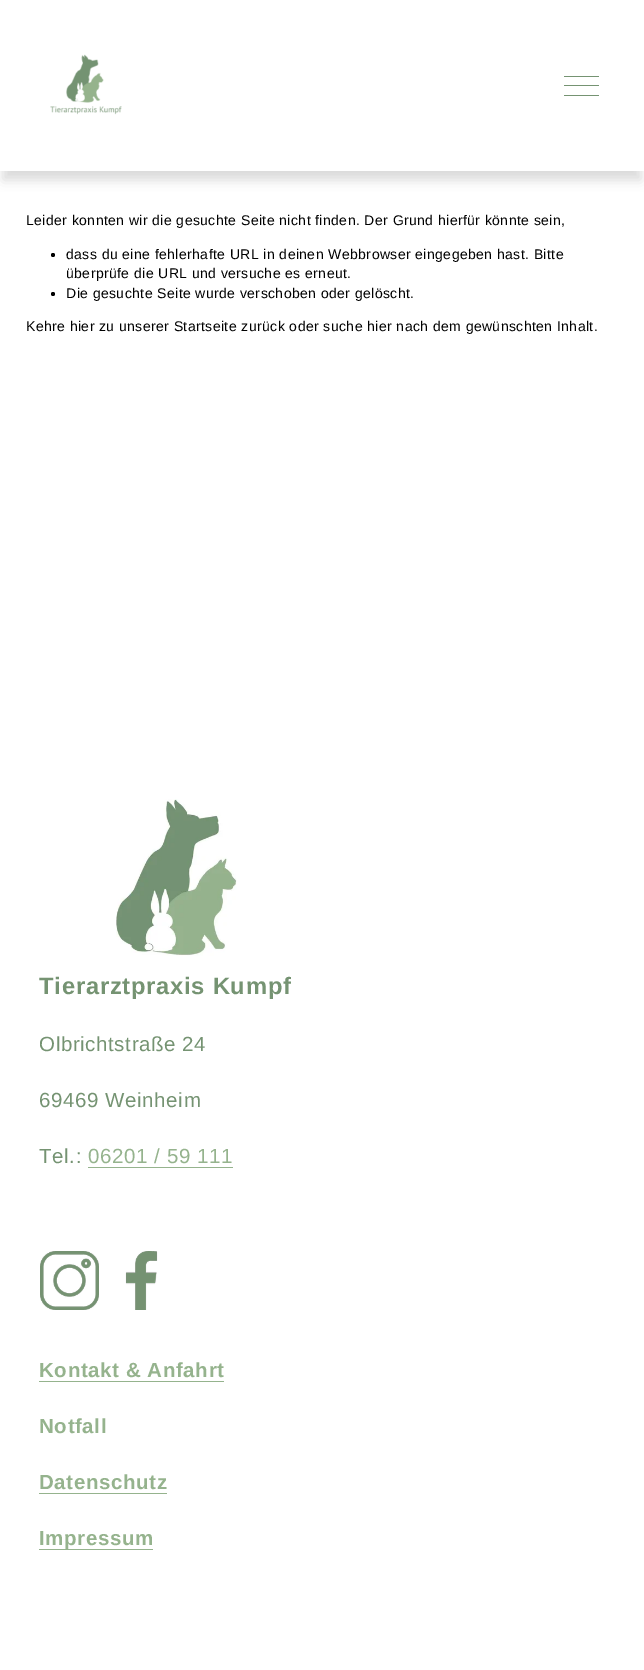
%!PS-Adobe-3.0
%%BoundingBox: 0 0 644 1670
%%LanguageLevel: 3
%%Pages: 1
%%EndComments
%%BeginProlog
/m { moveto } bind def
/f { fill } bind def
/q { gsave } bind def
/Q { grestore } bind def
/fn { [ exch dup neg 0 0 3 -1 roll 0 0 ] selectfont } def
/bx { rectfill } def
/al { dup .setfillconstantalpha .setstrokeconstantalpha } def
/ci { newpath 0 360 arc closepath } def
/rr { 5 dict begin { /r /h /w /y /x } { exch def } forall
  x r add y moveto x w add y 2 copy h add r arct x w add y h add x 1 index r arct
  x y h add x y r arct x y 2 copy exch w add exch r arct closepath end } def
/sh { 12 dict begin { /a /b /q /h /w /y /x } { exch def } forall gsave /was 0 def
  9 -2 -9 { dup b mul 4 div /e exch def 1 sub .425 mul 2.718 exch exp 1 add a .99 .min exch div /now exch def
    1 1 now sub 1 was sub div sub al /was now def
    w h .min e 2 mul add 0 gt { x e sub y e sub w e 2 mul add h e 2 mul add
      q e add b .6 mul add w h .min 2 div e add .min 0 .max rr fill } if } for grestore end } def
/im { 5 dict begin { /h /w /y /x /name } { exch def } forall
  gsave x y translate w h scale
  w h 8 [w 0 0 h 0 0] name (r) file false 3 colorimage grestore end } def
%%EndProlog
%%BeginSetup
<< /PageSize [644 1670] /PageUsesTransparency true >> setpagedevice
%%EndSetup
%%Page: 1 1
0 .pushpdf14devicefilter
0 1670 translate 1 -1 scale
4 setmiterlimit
1 setgray
0 0 644 1670 bx
q
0 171 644 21 rectclip
0.851 setgray
3 15 638 165 0 6 1 sh
Q
(image0.raw) 50 54 72 61 im
0.459 0.576 0.447 setrgbcolor
564 76 35 1 bx
564 85 35 1 bx
564 95 35 1 bx
/LiberationSans-Regular 14 fn
0 setgray
26 225 m 0.42 0 (Leider konnten wir die gesuchte Seite nicht finden. Der Grund hierfür könnte sein,) ashow
53 255 2 ci f
66 259 m 0.42 0 (dass du eine fehlerhafte URL in deinen Webbrowser eingegeben hast. Bitte) ashow
66 278 m 0.42 0 (überprüfe die URL und versuche es erneut.) ashow
53 294 2 ci f
66 298 m 0.42 0 (Die gesuchte Seite wurde verschoben oder gelöscht.) ashow
26 331 m 0.42 0 (Kehre hier zu unserer Startseite zurück oder suche hier nach dem gewünschten Inhalt.) ashow
(image1.raw) 116 799 121 157 im
/LiberationSans-Bold 23.75 fn
0.459 0.576 0.447 setrgbcolor
39 994 m 0.75 0 (Tierarztpraxis Kumpf) ashow
/LiberationSans-Regular 20.5 fn
39 1051 m 0.6 0 (Olbrichtstraße 24) ashow
39 1107 m 0.6 0 (69469 Weinheim) ashow
39 1163 m 0.6 0 (Tel.:) ashow
0.584 0.702 0.553 setrgbcolor
88 1163 m 0.6 0 (06201 / 59 111) ashow
88 1167 145 1 bx
(image2.raw) 40 1251 59 59 im
(image3.raw) 125 1251 33 59 im
/LiberationSans-Bold 20.5 fn
39 1377 m 0.6 0 (Kontakt & Anfahrt) ashow
39 1381 185 1 bx
39 1433 m 0.6 0 (Notfall) ashow
39 1489 m 0.6 0 (Datenschutz) ashow
39 1493 128 1 bx
39 1549 114 1 bx
39 1545 m 0.6 0 (Impressum) ashow
.poppdf14devicefilter showpage
%%EOF
